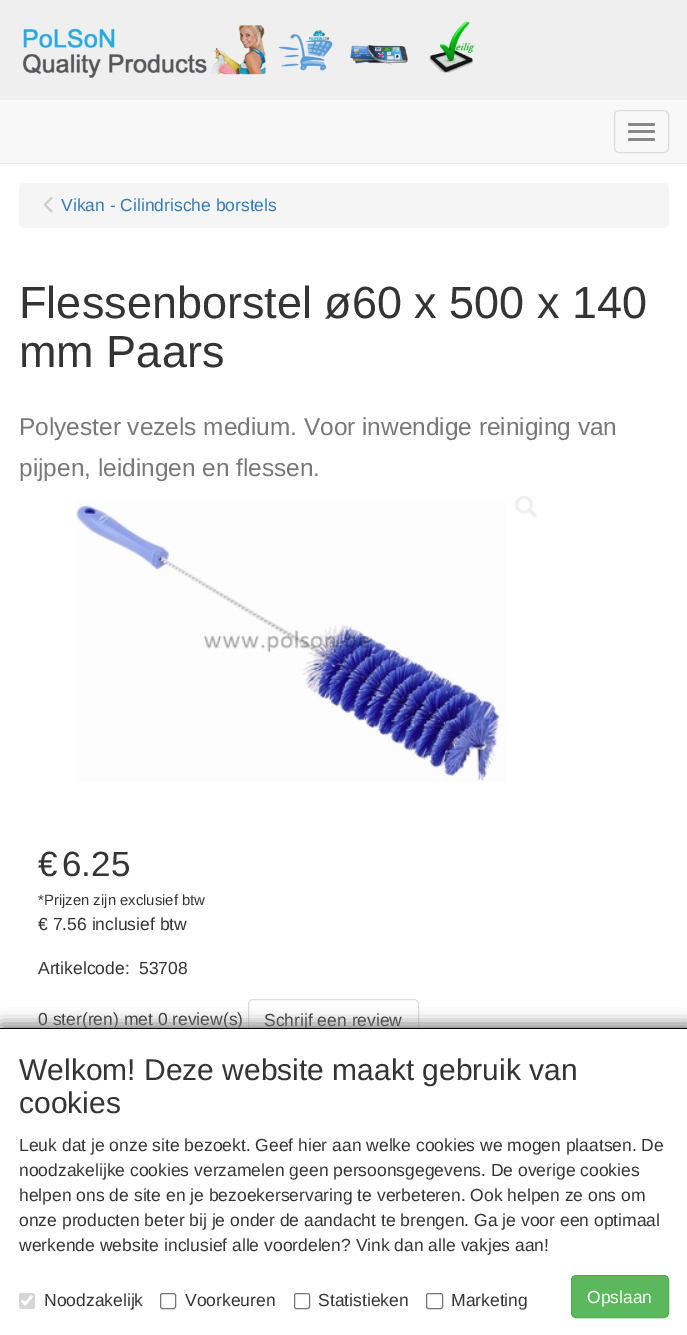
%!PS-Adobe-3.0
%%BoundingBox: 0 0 687 1335
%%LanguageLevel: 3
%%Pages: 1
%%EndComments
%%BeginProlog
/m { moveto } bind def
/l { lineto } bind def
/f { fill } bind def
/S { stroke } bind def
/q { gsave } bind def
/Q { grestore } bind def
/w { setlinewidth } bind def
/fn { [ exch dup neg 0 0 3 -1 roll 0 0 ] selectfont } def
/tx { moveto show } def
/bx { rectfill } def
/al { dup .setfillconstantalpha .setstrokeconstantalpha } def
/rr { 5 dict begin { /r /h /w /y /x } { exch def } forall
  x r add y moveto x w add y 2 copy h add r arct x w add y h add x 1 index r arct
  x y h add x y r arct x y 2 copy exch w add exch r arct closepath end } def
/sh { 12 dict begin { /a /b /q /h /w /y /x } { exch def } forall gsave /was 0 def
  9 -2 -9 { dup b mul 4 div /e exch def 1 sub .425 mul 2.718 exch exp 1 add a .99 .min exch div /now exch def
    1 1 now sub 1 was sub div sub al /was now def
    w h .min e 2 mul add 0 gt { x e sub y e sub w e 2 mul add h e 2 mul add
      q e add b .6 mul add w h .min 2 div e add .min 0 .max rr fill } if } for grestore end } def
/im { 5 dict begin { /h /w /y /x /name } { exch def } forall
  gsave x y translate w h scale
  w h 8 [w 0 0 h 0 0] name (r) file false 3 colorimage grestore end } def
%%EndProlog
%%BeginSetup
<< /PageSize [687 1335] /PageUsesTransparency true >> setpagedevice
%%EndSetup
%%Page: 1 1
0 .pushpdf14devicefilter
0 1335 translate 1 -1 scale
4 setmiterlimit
1 setgray
0 0 687 1335 bx
0.937 setgray
0 0 687 100 bx
(image0.raw) 22 20 453 58 im
0.973 setgray
0 100 687 63 bx
0.922 setgray
0 163 687 1 bx
0.867 setgray
614.5 110.5 54 42 4.5 rr S
0.533 setgray
628 123 27 3 1.5 rr f
628 130 27 3 1.5 rr f
628 138 27 3 1.5 rr f
0.961 setgray
19 183 650 45 5 rr f
(image1.raw) 43 197 10 16 im
/LiberationSans-Regular 17.5 fn
0.2 0.478 0.718 setrgbcolor
(Vikan - Cilindrische borstels) 61 211 tx
/LiberationSans-Regular 45 fn
0.204 setgray
(Flessenborstel ø60 x 500 x 140) 19 318 tx
(mm Paars) 19 367 tx
/LiberationSans-Regular 24.4 fn
0.471 setgray
(Polyester vezels medium. Voor inwendige reiniging van) 19 435 tx
(pijpen, leidingen en flessen.) 19 476 tx
(image2.raw) 76 500 430 282 im
(image3.raw) 515 496 22 22 im
/LiberationSans-Regular 35 fn
0.204 setgray
(€) 38 876 tx
(6.25) 62 876 tx
/LiberationSans-Regular 14.9 fn
(*Prijzen zijn exclusief btw) 38 905 tx
/LiberationSans-Regular 17.5 fn
(€ 7.56 inclusief btw) 38 930 tx
(Artikelcode:) 38 974 tx
(53708) 139 974 tx
(0 ster\(ren\) met 0 review\(s\)) 38 1025 tx
0.867 setgray
248.5 999.5 170 41 4.5 rr S
0.204 setgray
(Schrijf een review) 264 1026 tx
0.502 setgray
1 1024 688 307 0 7.5 1 sh
1 setgray
0 1029 687 306 bx
0 setgray
0 1028 687 1 bx
/LiberationSans-Regular 30 fn
0.204 setgray
(Welkom! Deze website maakt gebruik van) 19 1080 tx
(cookies) 19 1113 tx
/LiberationSans-Regular 17.5 fn
(Leuk dat je onze site bezoekt. Geef hier aan welke cookies we mogen plaatsen. De) 19 1151 tx
(noodzakelijke cookies verzamelen geen persoonsgegevens. De overige cookies) 19 1176 tx
(helpen ons de site en je bezoekerservaring te verbeteren. Ook helpen ze ons om) 19 1201 tx
(onze producten beter bij je onder de aandacht te brengen. Ga je voor een optimaal) 19 1226 tx
(werkende website inclusief alle voordelen? Vink dan alle vakjes aan!) 19 1251 tx
0.839 setgray
19 1293 16 16 2.5 rr f
1 setgray
2.6 w
22 1300.5 m 25 1304 l 32 1296 l S
0.204 setgray
(Noodzakelijk) 44 1306 tx
0.463 setgray
1 w
160.5 1293.5 15 15 2 rr S
0.204 setgray
(Voorkeuren) 185 1306 tx
0.463 setgray
294.5 1293.5 15 15 2 rr S
0.204 setgray
(Statistieken) 318 1306 tx
0.463 setgray
426.5 1293.5 16 15 2 rr S
0.204 setgray
(Marketing) 451 1306 tx
0.361 0.722 0.361 setrgbcolor
571.5 1275.5 97 42 4.5 rr q f Q
0.298 0.682 0.298 setrgbcolor
S
0.996 setgray
(Opslaan) 587 1303 tx
.poppdf14devicefilter showpage
%%EOF
